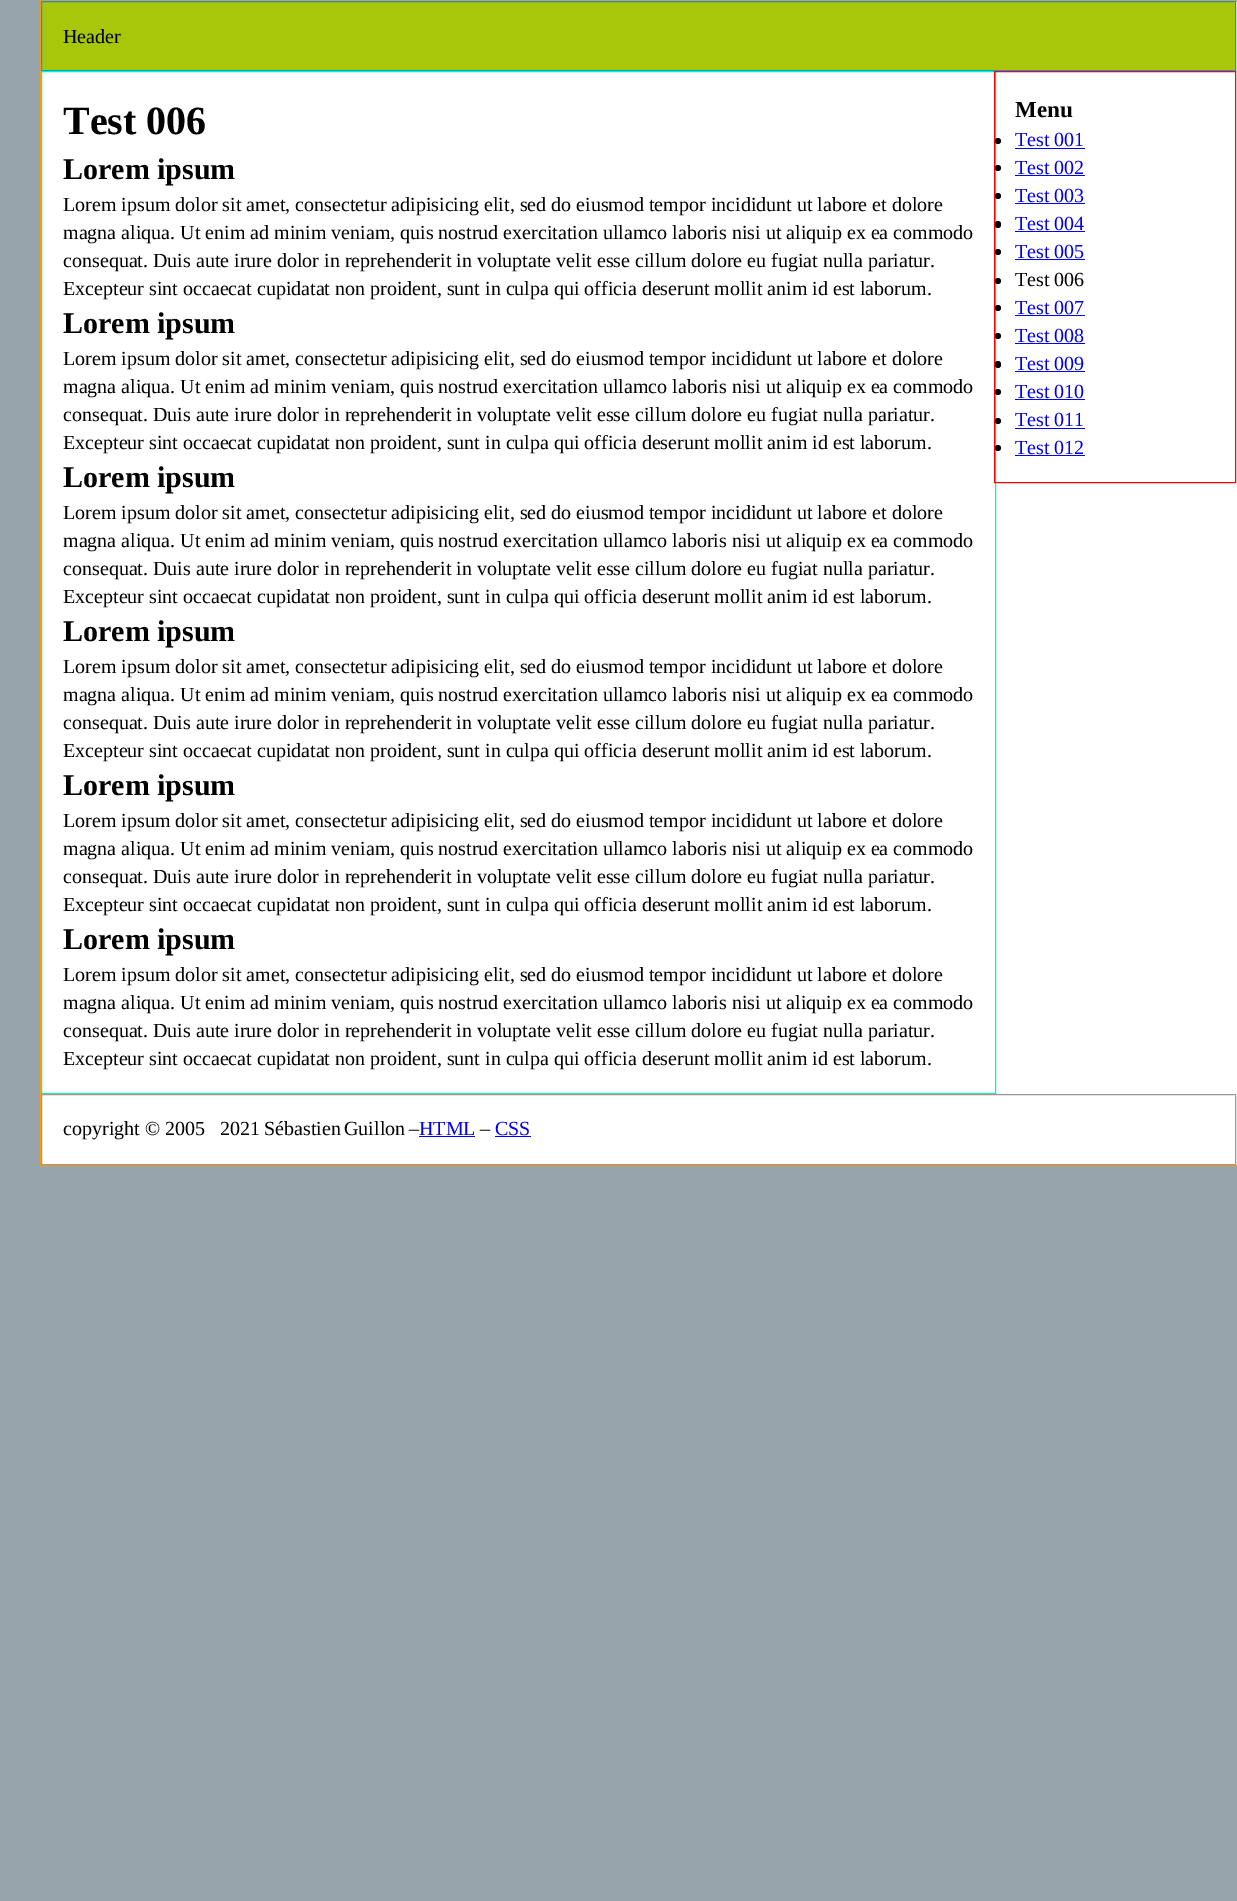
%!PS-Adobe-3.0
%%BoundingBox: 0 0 1237 1901
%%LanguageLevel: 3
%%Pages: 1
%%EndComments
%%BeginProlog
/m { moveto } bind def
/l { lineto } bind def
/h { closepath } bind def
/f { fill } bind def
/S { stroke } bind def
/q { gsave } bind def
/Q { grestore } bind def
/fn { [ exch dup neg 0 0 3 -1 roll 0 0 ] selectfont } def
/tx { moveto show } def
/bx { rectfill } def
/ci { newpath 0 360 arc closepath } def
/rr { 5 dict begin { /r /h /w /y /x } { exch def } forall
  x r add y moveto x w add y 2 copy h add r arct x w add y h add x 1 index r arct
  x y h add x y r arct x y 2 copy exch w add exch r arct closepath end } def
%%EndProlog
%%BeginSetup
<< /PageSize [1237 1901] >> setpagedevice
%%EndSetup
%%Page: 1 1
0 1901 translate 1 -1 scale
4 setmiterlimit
0.592 0.643 0.675 setrgbcolor
0 0 1237 1901 bx
1 setgray
42 1 1195 1164 bx
1 0.6 0 setrgbcolor
40.5 0.5 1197 1165 rectstroke
0.659 0.78 0.043 setrgbcolor
41.5 1.5 m 1235.5 1.5 l 1235.5 70.5 l 41.5 70.5 l h q f Q
0 0.6 1 setrgbcolor
S
/LiberationSerif-Regular 20 fn
0 setgray
(Header) 63 43 tx
0 1 0.6 setrgbcolor
41.5 71.5 954 1022 rectstroke
/LiberationSerif-Bold 40 fn
0 setgray
(Test 006) 63 134 tx
/LiberationSerif-Bold 30 fn
(Lorem ipsum) 63 179 tx
/LiberationSerif-Regular 20 fn
(Lorem ipsum dolor sit amet, consectetur adipisicing elit, sed do eiusmod tempor incididunt ut labore et dolore) 63 211 tx
(magna aliqua. Ut enim ad minim veniam, quis nostrud exercitation ullamco laboris nisi ut aliquip ex ea commodo) 63 239 tx
(consequat. Duis aute irure dolor in reprehenderit in voluptate velit esse cillum dolore eu fugiat nulla pariatur.) 63 267 tx
(Excepteur sint occaecat cupidatat non proident, sunt in culpa qui officia deserunt mollit anim id est laborum.) 63 295 tx
/LiberationSerif-Bold 30 fn
(Lorem ipsum) 63 333 tx
/LiberationSerif-Regular 20 fn
(Lorem ipsum dolor sit amet, consectetur adipisicing elit, sed do eiusmod tempor incididunt ut labore et dolore) 63 365 tx
(magna aliqua. Ut enim ad minim veniam, quis nostrud exercitation ullamco laboris nisi ut aliquip ex ea commodo) 63 393 tx
(consequat. Duis aute irure dolor in reprehenderit in voluptate velit esse cillum dolore eu fugiat nulla pariatur.) 63 421 tx
(Excepteur sint occaecat cupidatat non proident, sunt in culpa qui officia deserunt mollit anim id est laborum.) 63 449 tx
/LiberationSerif-Bold 30 fn
(Lorem ipsum) 63 487 tx
/LiberationSerif-Regular 20 fn
(Lorem ipsum dolor sit amet, consectetur adipisicing elit, sed do eiusmod tempor incididunt ut labore et dolore) 63 519 tx
(magna aliqua. Ut enim ad minim veniam, quis nostrud exercitation ullamco laboris nisi ut aliquip ex ea commodo) 63 547 tx
(consequat. Duis aute irure dolor in reprehenderit in voluptate velit esse cillum dolore eu fugiat nulla pariatur.) 63 575 tx
(Excepteur sint occaecat cupidatat non proident, sunt in culpa qui officia deserunt mollit anim id est laborum.) 63 603 tx
/LiberationSerif-Bold 30 fn
(Lorem ipsum) 63 641 tx
/LiberationSerif-Regular 20 fn
(Lorem ipsum dolor sit amet, consectetur adipisicing elit, sed do eiusmod tempor incididunt ut labore et dolore) 63 673 tx
(magna aliqua. Ut enim ad minim veniam, quis nostrud exercitation ullamco laboris nisi ut aliquip ex ea commodo) 63 701 tx
(consequat. Duis aute irure dolor in reprehenderit in voluptate velit esse cillum dolore eu fugiat nulla pariatur.) 63 729 tx
(Excepteur sint occaecat cupidatat non proident, sunt in culpa qui officia deserunt mollit anim id est laborum.) 63 757 tx
/LiberationSerif-Bold 30 fn
(Lorem ipsum) 63 795 tx
/LiberationSerif-Regular 20 fn
(Lorem ipsum dolor sit amet, consectetur adipisicing elit, sed do eiusmod tempor incididunt ut labore et dolore) 63 827 tx
(magna aliqua. Ut enim ad minim veniam, quis nostrud exercitation ullamco laboris nisi ut aliquip ex ea commodo) 63 855 tx
(consequat. Duis aute irure dolor in reprehenderit in voluptate velit esse cillum dolore eu fugiat nulla pariatur.) 63 883 tx
(Excepteur sint occaecat cupidatat non proident, sunt in culpa qui officia deserunt mollit anim id est laborum.) 63 911 tx
/LiberationSerif-Bold 30 fn
(Lorem ipsum) 63 949 tx
/LiberationSerif-Regular 20 fn
(Lorem ipsum dolor sit amet, consectetur adipisicing elit, sed do eiusmod tempor incididunt ut labore et dolore) 63 981 tx
(magna aliqua. Ut enim ad minim veniam, quis nostrud exercitation ullamco laboris nisi ut aliquip ex ea commodo) 63 1009 tx
(consequat. Duis aute irure dolor in reprehenderit in voluptate velit esse cillum dolore eu fugiat nulla pariatur.) 63 1037 tx
(Excepteur sint occaecat cupidatat non proident, sunt in culpa qui officia deserunt mollit anim id est laborum.) 63 1065 tx
1 0 0 setrgbcolor
994.5 71.5 241 411 rectstroke
/LiberationSerif-Bold 23 fn
0 setgray
(Menu) 1015 117 tx
998 141 3 ci f
/LiberationSerif-Regular 20 fn
0 0 0.933 setrgbcolor
(Test 001) 1015 146 tx
1015 148 70 1 bx
0 setgray
998 168 3 ci f
0 0 0.933 setrgbcolor
(Test 002) 1015 174 tx
1015 175 70 1 bx
0 setgray
998 196 3 ci f
0 0 0.933 setrgbcolor
(Test 003) 1015 202 tx
1015 203 70 1 bx
0 setgray
995 221 6 7 3 rr f
0 0 0.933 setrgbcolor
(Test 004) 1015 230 tx
1015 231 70 1 bx
0 setgray
998 252 3 ci f
0 0 0.933 setrgbcolor
(Test 005) 1015 258 tx
1015 259 70 1 bx
0 setgray
998 281 3 ci f
(Test 006) 1015 286 tx
998 308 3 ci f
0 0 0.933 setrgbcolor
(Test 007) 1015 314 tx
1015 315 70 1 bx
0 setgray
998 336 3 ci f
0 0 0.933 setrgbcolor
(Test 008) 1015 342 tx
1015 343 70 1 bx
0 setgray
995 361 6 7 3 rr f
0 0 0.933 setrgbcolor
(Test 009) 1015 370 tx
1015 371 70 1 bx
0 setgray
998 392 3 ci f
0 0 0.933 setrgbcolor
(Test 010) 1015 398 tx
1015 399 70 1 bx
0 setgray
998 421 3 ci f
0 0 0.933 setrgbcolor
(Test 011) 1015 426 tx
1015 428 70 1 bx
0 setgray
998 448 3 ci f
0 0 0.933 setrgbcolor
(Test 012) 1015 454 tx
1015 455 70 1 bx
0.6 setgray
41.5 1094.5 1194 70 rectstroke
0 setgray
(copyright © 2005‑2021) 63 1135 tx
(Sébastien) 264 1135 tx
(Guillon) 344 1135 tx
(–) 409 1135 tx
0 0 0.933 setrgbcolor
(HTML) 419 1135 tx
419 1136 56 1 bx
0 setgray
(–) 480 1135 tx
0 0 0.933 setrgbcolor
(CSS) 495 1135 tx
495 1136 36 1 bx
showpage
%%EOF
